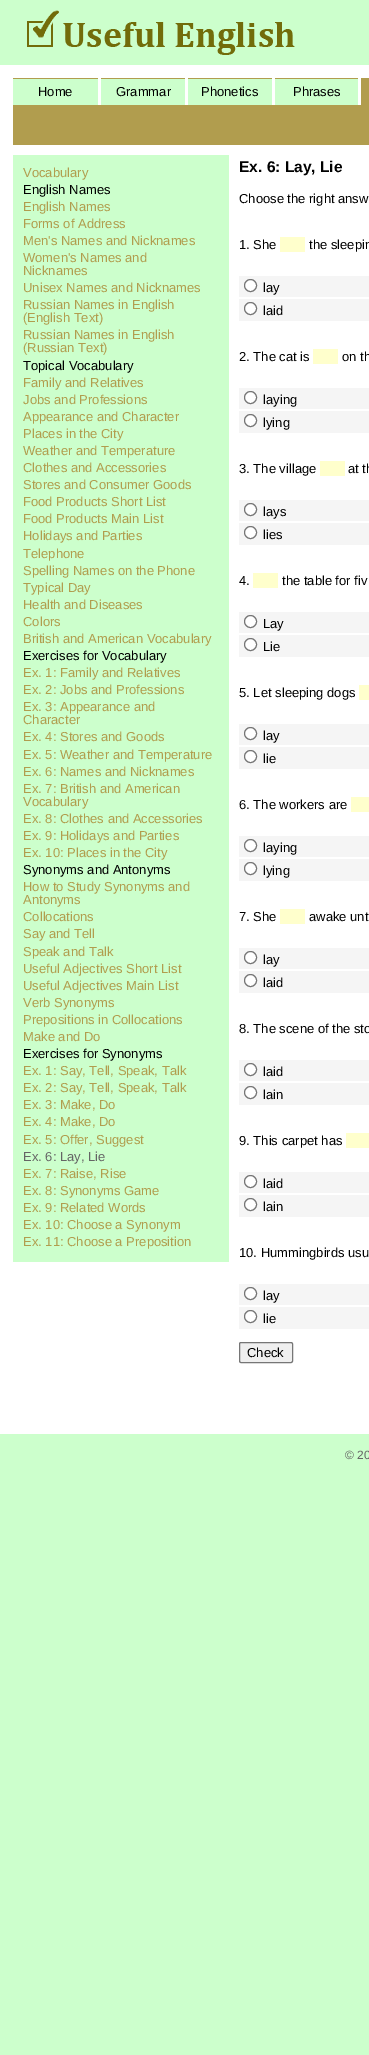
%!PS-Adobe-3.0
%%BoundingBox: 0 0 369 2055
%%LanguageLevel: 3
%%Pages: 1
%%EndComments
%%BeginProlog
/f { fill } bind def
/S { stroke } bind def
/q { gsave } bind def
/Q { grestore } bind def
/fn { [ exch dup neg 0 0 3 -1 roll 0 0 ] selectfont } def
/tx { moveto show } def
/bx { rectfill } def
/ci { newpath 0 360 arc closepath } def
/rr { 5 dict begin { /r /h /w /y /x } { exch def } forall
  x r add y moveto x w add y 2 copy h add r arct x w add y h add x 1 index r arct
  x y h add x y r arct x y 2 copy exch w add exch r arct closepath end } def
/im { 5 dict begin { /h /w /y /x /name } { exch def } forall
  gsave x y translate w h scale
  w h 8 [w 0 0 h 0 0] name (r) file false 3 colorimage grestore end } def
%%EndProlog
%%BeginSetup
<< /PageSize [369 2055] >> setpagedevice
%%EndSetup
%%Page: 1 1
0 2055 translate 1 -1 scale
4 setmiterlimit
0.8 1 0.8 setrgbcolor
0 0 369 2055 bx
(image0.raw) 27 10 268 45 im
1 setgray
0 65 369 1369 bx
0.8 1 0.8 setrgbcolor
13 79 85 26 bx
0.694 0.616 0.306 setrgbcolor
13 78 85 1 bx
/LiberationSans-Regular 13 fn
0 setgray
(Home) 38 96 tx
0.8 1 0.8 setrgbcolor
101 79 84 26 bx
0.694 0.616 0.306 setrgbcolor
101 78 84 1 bx
0 setgray
(Grammar) 116 96 tx
0.8 1 0.8 setrgbcolor
188 79 84 26 bx
0.694 0.616 0.306 setrgbcolor
188 78 84 1 bx
0 setgray
(Phonetics) 201 96 tx
0.8 1 0.8 setrgbcolor
275 79 83 26 bx
0.694 0.616 0.306 setrgbcolor
275 78 83 1 bx
0 setgray
(Phrases) 293 96 tx
0.694 0.616 0.306 setrgbcolor
361 78 8 27 bx
13 105 356 40 bx
0.8 1 0.8 setrgbcolor
13 155 216 1107 bx
0.694 0.616 0.306 setrgbcolor
(Vocabulary) 23 177 tx
0 setgray
(English Names) 23 194 tx
0.694 0.616 0.306 setrgbcolor
(English Names) 23 211 tx
(Forms of Address) 23 228 tx
(Men's Names and Nicknames) 23 245 tx
(Women's Names and) 23 262 tx
(Nicknames) 23 275 tx
(Unisex Names and Nicknames) 23 292 tx
(Russian Names in English) 23 309 tx
(\(English Text\)) 23 322 tx
(Russian Names in English) 23 339 tx
(\(Russian Text\)) 23 352 tx
0 setgray
(Topical Vocabulary) 23 370 tx
0.694 0.616 0.306 setrgbcolor
(Family and Relatives) 23 387 tx
(Jobs and Professions) 23 404 tx
(Appearance and Character) 23 421 tx
(Places in the City) 23 438 tx
(Weather and Temperature) 23 455 tx
(Clothes and Accessories) 23 472 tx
(Stores and Consumer Goods) 23 489 tx
(Food Products Short List) 23 506 tx
(Food Products Main List) 23 523 tx
(Holidays and Parties) 23 540 tx
(Telephone) 23 558 tx
(Spelling Names on the Phone) 23 575 tx
(Typical Day) 23 592 tx
(Health and Diseases) 23 609 tx
(Colors) 23 626 tx
(British and American Vocabulary) 23 643 tx
0 setgray
(Exercises for Vocabulary) 23 660 tx
0.694 0.616 0.306 setrgbcolor
(Ex. 1: Family and Relatives) 23 677 tx
(Ex. 2: Jobs and Professions) 23 694 tx
(Ex. 3: Appearance and) 23 711 tx
(Character) 23 724 tx
(Ex. 4: Stores and Goods) 23 741 tx
(Ex. 5: Weather and Temperature) 23 759 tx
(Ex. 6: Names and Nicknames) 23 776 tx
(Ex. 7: British and American) 23 793 tx
(Vocabulary) 23 806 tx
(Ex. 8: Clothes and Accessories) 23 823 tx
(Ex. 9: Holidays and Parties) 23 840 tx
(Ex. 10: Places in the City) 23 857 tx
0 setgray
(Synonyms and Antonyms) 23 874 tx
0.694 0.616 0.306 setrgbcolor
(How to Study Synonyms and) 23 891 tx
(Antonyms) 23 904 tx
(Collocations) 23 921 tx
(Say and Tell) 23 938 tx
(Speak and Talk) 23 956 tx
(Useful Adjectives Short List) 23 973 tx
(Useful Adjectives Main List) 23 990 tx
(Verb Synonyms) 23 1007 tx
(Prepositions in Collocations) 23 1024 tx
(Make and Do) 23 1041 tx
0 setgray
(Exercises for Synonyms) 23 1058 tx
0.694 0.616 0.306 setrgbcolor
(Ex. 1: Say, Tell, Speak, Talk) 23 1075 tx
(Ex. 2: Say, Tell, Speak, Talk) 23 1092 tx
(Ex. 3: Make, Do) 23 1109 tx
(Ex. 4: Make, Do) 23 1126 tx
(Ex. 5: Offer, Suggest) 23 1144 tx
0.396 setgray
(Ex. 6: Lay, Lie) 23 1161 tx
0.694 0.616 0.306 setrgbcolor
(Ex. 7: Raise, Rise) 23 1178 tx
(Ex. 8: Synonyms Game) 23 1195 tx
(Ex. 9: Related Words) 23 1212 tx
(Ex. 10: Choose a Synonym) 23 1229 tx
(Ex. 11: Choose a Preposition) 23 1246 tx
/LiberationSans-Bold 15.5 fn
0 setgray
(Ex. 6: Lay, Lie) 239 172 tx
/LiberationSans-Regular 13 fn
(Choose the right answ) 239 203 tx
(1. She) 239 249 tx
1 1 0.8 setrgbcolor
280 237 25 15 bx
0 setgray
(the sleepin) 309 249 tx
0.961 setgray
239 276 130 21 bx
1 setgray
250.5 285.5 6 ci q f Q
0.463 setgray
S
0 setgray
(lay) 263 292 tx
0.961 setgray
239 299 130 22 bx
1 setgray
250.5 308.5 6 ci q f Q
0.463 setgray
S
0 setgray
(laid) 263 315 tx
(2. The cat is) 239 361 tx
1 1 0.8 setrgbcolor
313 349 25 15 bx
0 setgray
(on th) 342 361 tx
0.961 setgray
239 388 130 21 bx
1 setgray
250.5 397.5 6 ci q f Q
0.463 setgray
S
0 setgray
(laying) 263 404 tx
0.961 setgray
239 411 130 22 bx
1 setgray
250.5 420.5 6 ci q f Q
0.463 setgray
S
0 setgray
(lying) 263 427 tx
(3. The village) 239 473 tx
1 1 0.8 setrgbcolor
320 461 25 15 bx
0 setgray
(at th) 348 473 tx
0.961 setgray
239 500 130 21 bx
1 setgray
250.5 509.5 6 ci q f Q
0.463 setgray
S
0 setgray
(lays) 263 516 tx
0.961 setgray
239 523 130 22 bx
1 setgray
250.5 532.5 6 ci q f Q
0.463 setgray
S
0 setgray
(lies) 263 539 tx
(4.) 239 585 tx
1 1 0.8 setrgbcolor
253 573 25 15 bx
0 setgray
(the table for fiv) 282 585 tx
0.961 setgray
239 612 130 21 bx
1 setgray
250.5 621.5 6 ci q f Q
0.463 setgray
S
0 setgray
(Lay) 263 628 tx
0.961 setgray
239 635 130 22 bx
1 setgray
250.5 644.5 6 ci q f Q
0.463 setgray
S
0 setgray
(Lie) 263 651 tx
(5. Let sleeping dogs) 239 697 tx
1 1 0.8 setrgbcolor
359 685 10 15 bx
0.961 setgray
239 724 130 21 bx
1 setgray
250.5 733.5 6 ci q f Q
0.463 setgray
S
0 setgray
(lay) 263 740 tx
0.961 setgray
239 747 130 22 bx
1 setgray
250.5 756.5 6 ci q f Q
0.463 setgray
S
0 setgray
(lie) 263 763 tx
(6. The workers are) 239 809 tx
1 1 0.8 setrgbcolor
351 797 18 15 bx
0.961 setgray
239 836 130 21 bx
1 setgray
250.5 845.5 6 ci q f Q
0.463 setgray
S
0 setgray
(laying) 263 852 tx
0.961 setgray
239 859 130 22 bx
1 setgray
250.5 868.5 6 ci q f Q
0.463 setgray
S
0 setgray
(lying) 263 875 tx
(7. She) 239 921 tx
1 1 0.8 setrgbcolor
280 909 25 15 bx
0 setgray
(awake unt) 309 921 tx
0.961 setgray
239 948 130 21 bx
1 setgray
250.5 957.5 6 ci q f Q
0.463 setgray
S
0 setgray
(lay) 263 964 tx
0.961 setgray
239 971 130 22 bx
1 setgray
250.5 980.5 6 ci q f Q
0.463 setgray
S
0 setgray
(laid) 263 987 tx
(8. The scene of the sto) 239 1033 tx
0.961 setgray
239 1060 130 21 bx
1 setgray
250.5 1069.5 6 ci q f Q
0.463 setgray
S
0 setgray
(laid) 263 1076 tx
0.961 setgray
239 1083 130 22 bx
1 setgray
250.5 1092.5 6 ci q f Q
0.463 setgray
S
0 setgray
(lain) 263 1099 tx
(9. This carpet has) 239 1145 tx
1 1 0.8 setrgbcolor
346 1133 23 15 bx
0.961 setgray
239 1172 130 21 bx
1 setgray
250.5 1181.5 6 ci q f Q
0.463 setgray
S
0 setgray
(laid) 263 1188 tx
0.961 setgray
239 1195 130 22 bx
1 setgray
250.5 1204.5 6 ci q f Q
0.463 setgray
S
0 setgray
(lain) 263 1211 tx
(10. Hummingbirds usu) 239 1257 tx
0.961 setgray
239 1284 130 21 bx
1 setgray
250.5 1293.5 6 ci q f Q
0.463 setgray
S
0 setgray
(lay) 263 1300 tx
0.961 setgray
239 1307 130 22 bx
1 setgray
250.5 1316.5 6 ci q f Q
0.463 setgray
S
0 setgray
(lie) 263 1323 tx
0.937 setgray
239.5 1342.5 53 20 1.5 rr q f Q
0.463 setgray
S
0 setgray
(Check) 247 1357 tx
/LiberationSans-Regular 12 fn
0.396 setgray
(© 20) 345 1459 tx
showpage
%%EOF
